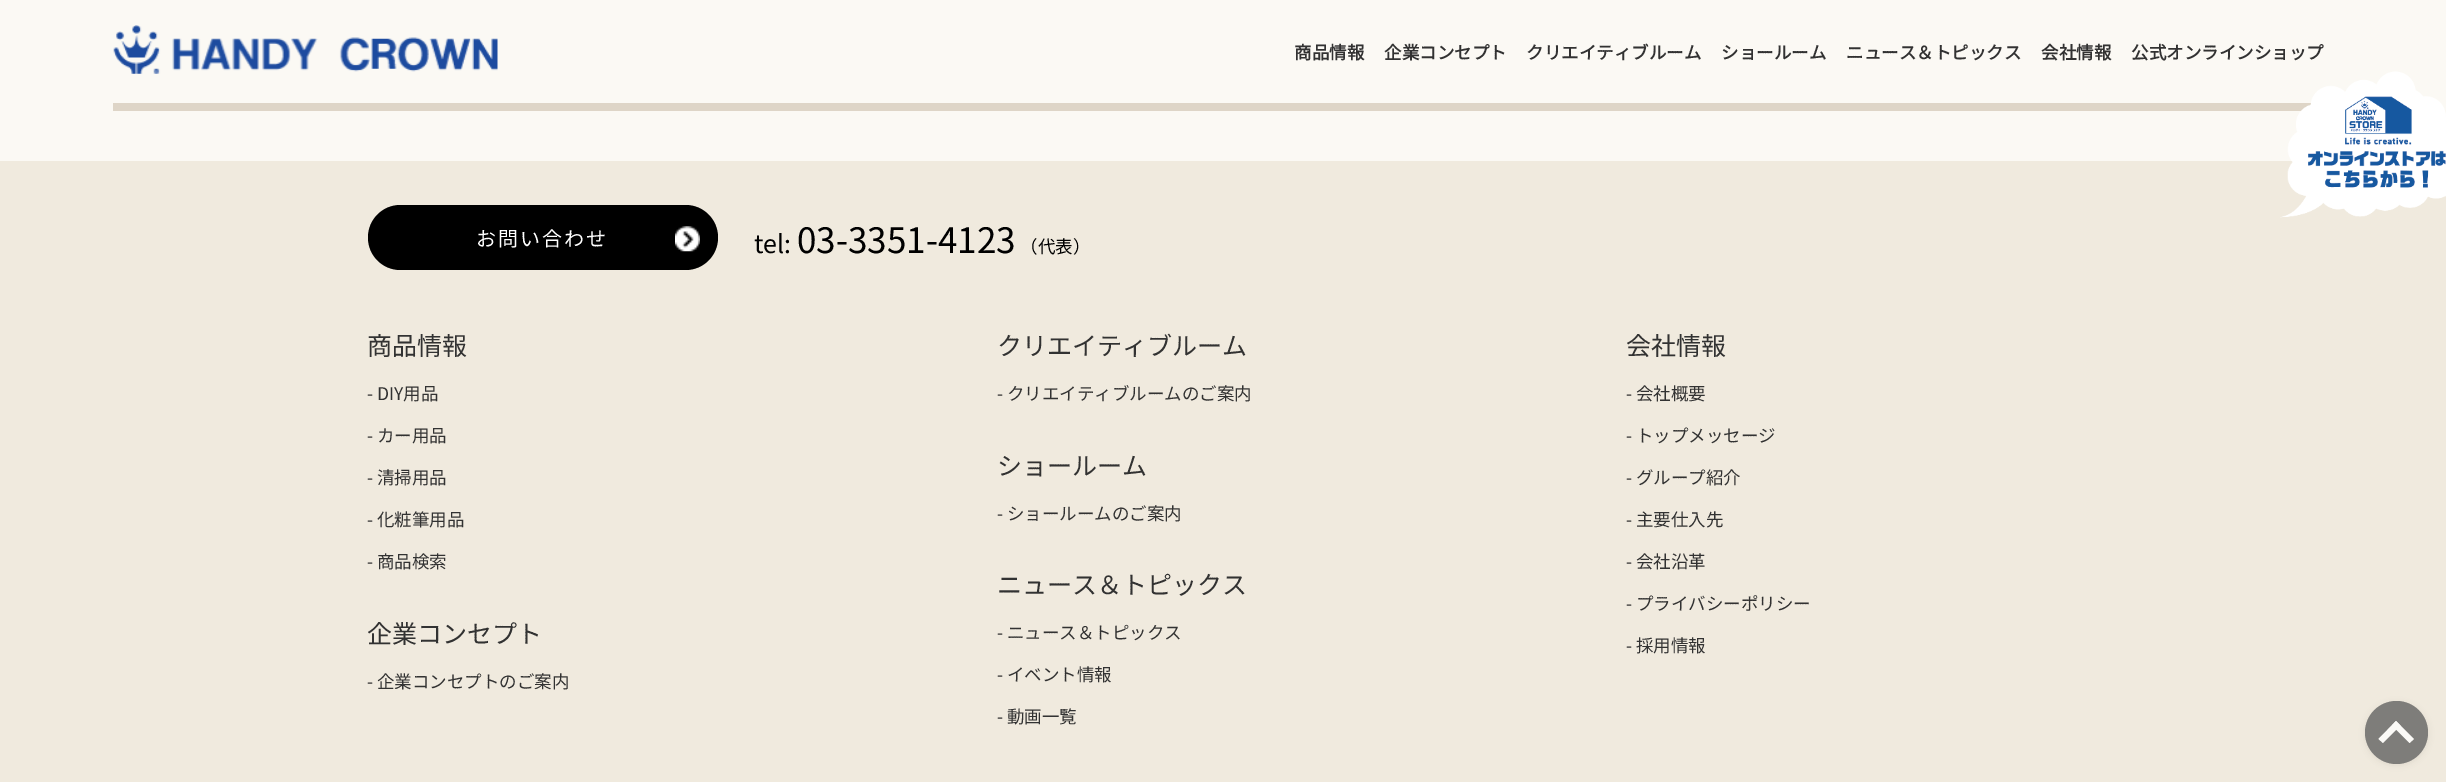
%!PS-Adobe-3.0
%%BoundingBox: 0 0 2446 782
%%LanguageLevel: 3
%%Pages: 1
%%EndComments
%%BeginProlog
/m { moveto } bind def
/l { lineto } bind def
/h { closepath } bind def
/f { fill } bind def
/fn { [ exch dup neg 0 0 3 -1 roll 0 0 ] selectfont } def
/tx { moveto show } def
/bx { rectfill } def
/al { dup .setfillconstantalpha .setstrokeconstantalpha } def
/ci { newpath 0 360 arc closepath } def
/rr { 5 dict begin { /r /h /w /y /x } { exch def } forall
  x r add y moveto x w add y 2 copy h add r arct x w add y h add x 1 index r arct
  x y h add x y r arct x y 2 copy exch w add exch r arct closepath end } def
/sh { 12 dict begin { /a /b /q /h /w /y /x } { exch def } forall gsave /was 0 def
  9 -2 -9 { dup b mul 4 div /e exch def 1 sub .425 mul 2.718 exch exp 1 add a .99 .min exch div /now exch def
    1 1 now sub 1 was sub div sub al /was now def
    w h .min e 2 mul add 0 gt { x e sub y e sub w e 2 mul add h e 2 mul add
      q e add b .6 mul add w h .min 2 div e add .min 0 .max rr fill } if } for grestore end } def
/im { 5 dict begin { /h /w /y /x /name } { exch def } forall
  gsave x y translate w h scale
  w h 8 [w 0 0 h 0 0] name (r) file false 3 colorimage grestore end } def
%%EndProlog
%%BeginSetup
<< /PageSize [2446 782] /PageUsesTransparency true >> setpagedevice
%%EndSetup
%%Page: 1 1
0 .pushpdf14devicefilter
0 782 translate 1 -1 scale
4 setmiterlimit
0.984 0.976 0.957 setrgbcolor
0 0 2446 782 bx
(image0.raw) 113 25 385 49 im
/NotoSansJP-Bold 17.5 fn
0.196 setgray
(商品情報) 1294 59 tx
(企業コンセプト) 1384 59 tx
(クリエイティブルーム) 1526 59 tx
(ショールーム) 1721 59 tx
(ニュース＆トピックス) 1846 59 tx
(会社情報) 2041 59 tx
(公式オンラインショップ) 2131 59 tx
0.871 0.835 0.78 setrgbcolor
113 103 2198 8 bx
0.941 0.918 0.871 setrgbcolor
0 161 2446 621 bx
(image1.raw) 2280 71 166 147 im
0 setgray
368 205 350 65 32.5 rr f
(image2.raw) 675 226 25 26 im
/NotoSansJP-Thin 20 fn
1 setgray
476 246 m 2 0 (お問い合わせ) ashow
/NotoSansJP-Thin 25 fn
0 setgray
(tel:) 754 253 tx
/NotoSansJP-Thin 35 fn
(03-3351-4123) 797 253 tx
/NotoSansJP-Thin 17.5 fn
(（代表）) 1020 253 tx
/NotoSansJP-Thin 25 fn
0.196 setgray
(商品情報) 367 355 tx
/NotoSansJP-Thin 17.5 fn
(- DIY用品) 367 400 tx
(- カー用品) 367 442 tx
(- 清掃用品) 367 484 tx
(- 化粧筆用品) 367 526 tx
(- 商品検索) 367 568 tx
/NotoSansJP-Thin 25 fn
(企業コンセプト) 367 643 tx
/NotoSansJP-Thin 17.5 fn
(- 企業コンセプトのご案内) 367 688 tx
/NotoSansJP-Thin 25 fn
(クリエイティブルーム) 997 355 tx
/NotoSansJP-Thin 17.5 fn
(- クリエイティブルームのご案内) 997 400 tx
/NotoSansJP-Thin 25 fn
(ショールーム) 997 475 tx
/NotoSansJP-Thin 17.5 fn
(- ショールームのご案内) 997 520 tx
/NotoSansJP-Thin 25 fn
(ニュース＆トピックス) 997 594 tx
/NotoSansJP-Thin 17.5 fn
(- ニュース＆トピックス) 997 639 tx
(- イベント情報) 997 681 tx
(- 動画一覧) 997 723 tx
/NotoSansJP-Thin 25 fn
(会社情報) 1626 355 tx
/NotoSansJP-Thin 17.5 fn
(- 会社概要) 1626 400 tx
(- トップメッセージ) 1626 442 tx
(- グループ紹介) 1626 484 tx
(- 主要仕入先) 1626 526 tx
(- 会社沿革) 1626 568 tx
(- プライバシーポリシー) 1626 610 tx
(- 採用情報) 1626 652 tx
0.235 0.231 0.22 setrgbcolor
2365 703 63 62 31 3 0.1 sh
0.494 0.49 0.478 setrgbcolor
2396.5 732.5 31.5 ci f
0.984 0.98 0.969 setrgbcolor
2396 721 m 2414 739 l 2409.5 743 l 2392 725.5 l h f
2396 721 m 2400.5 725.5 l 2383 743 l 2378.5 739 l h f
.poppdf14devicefilter showpage
%%EOF
